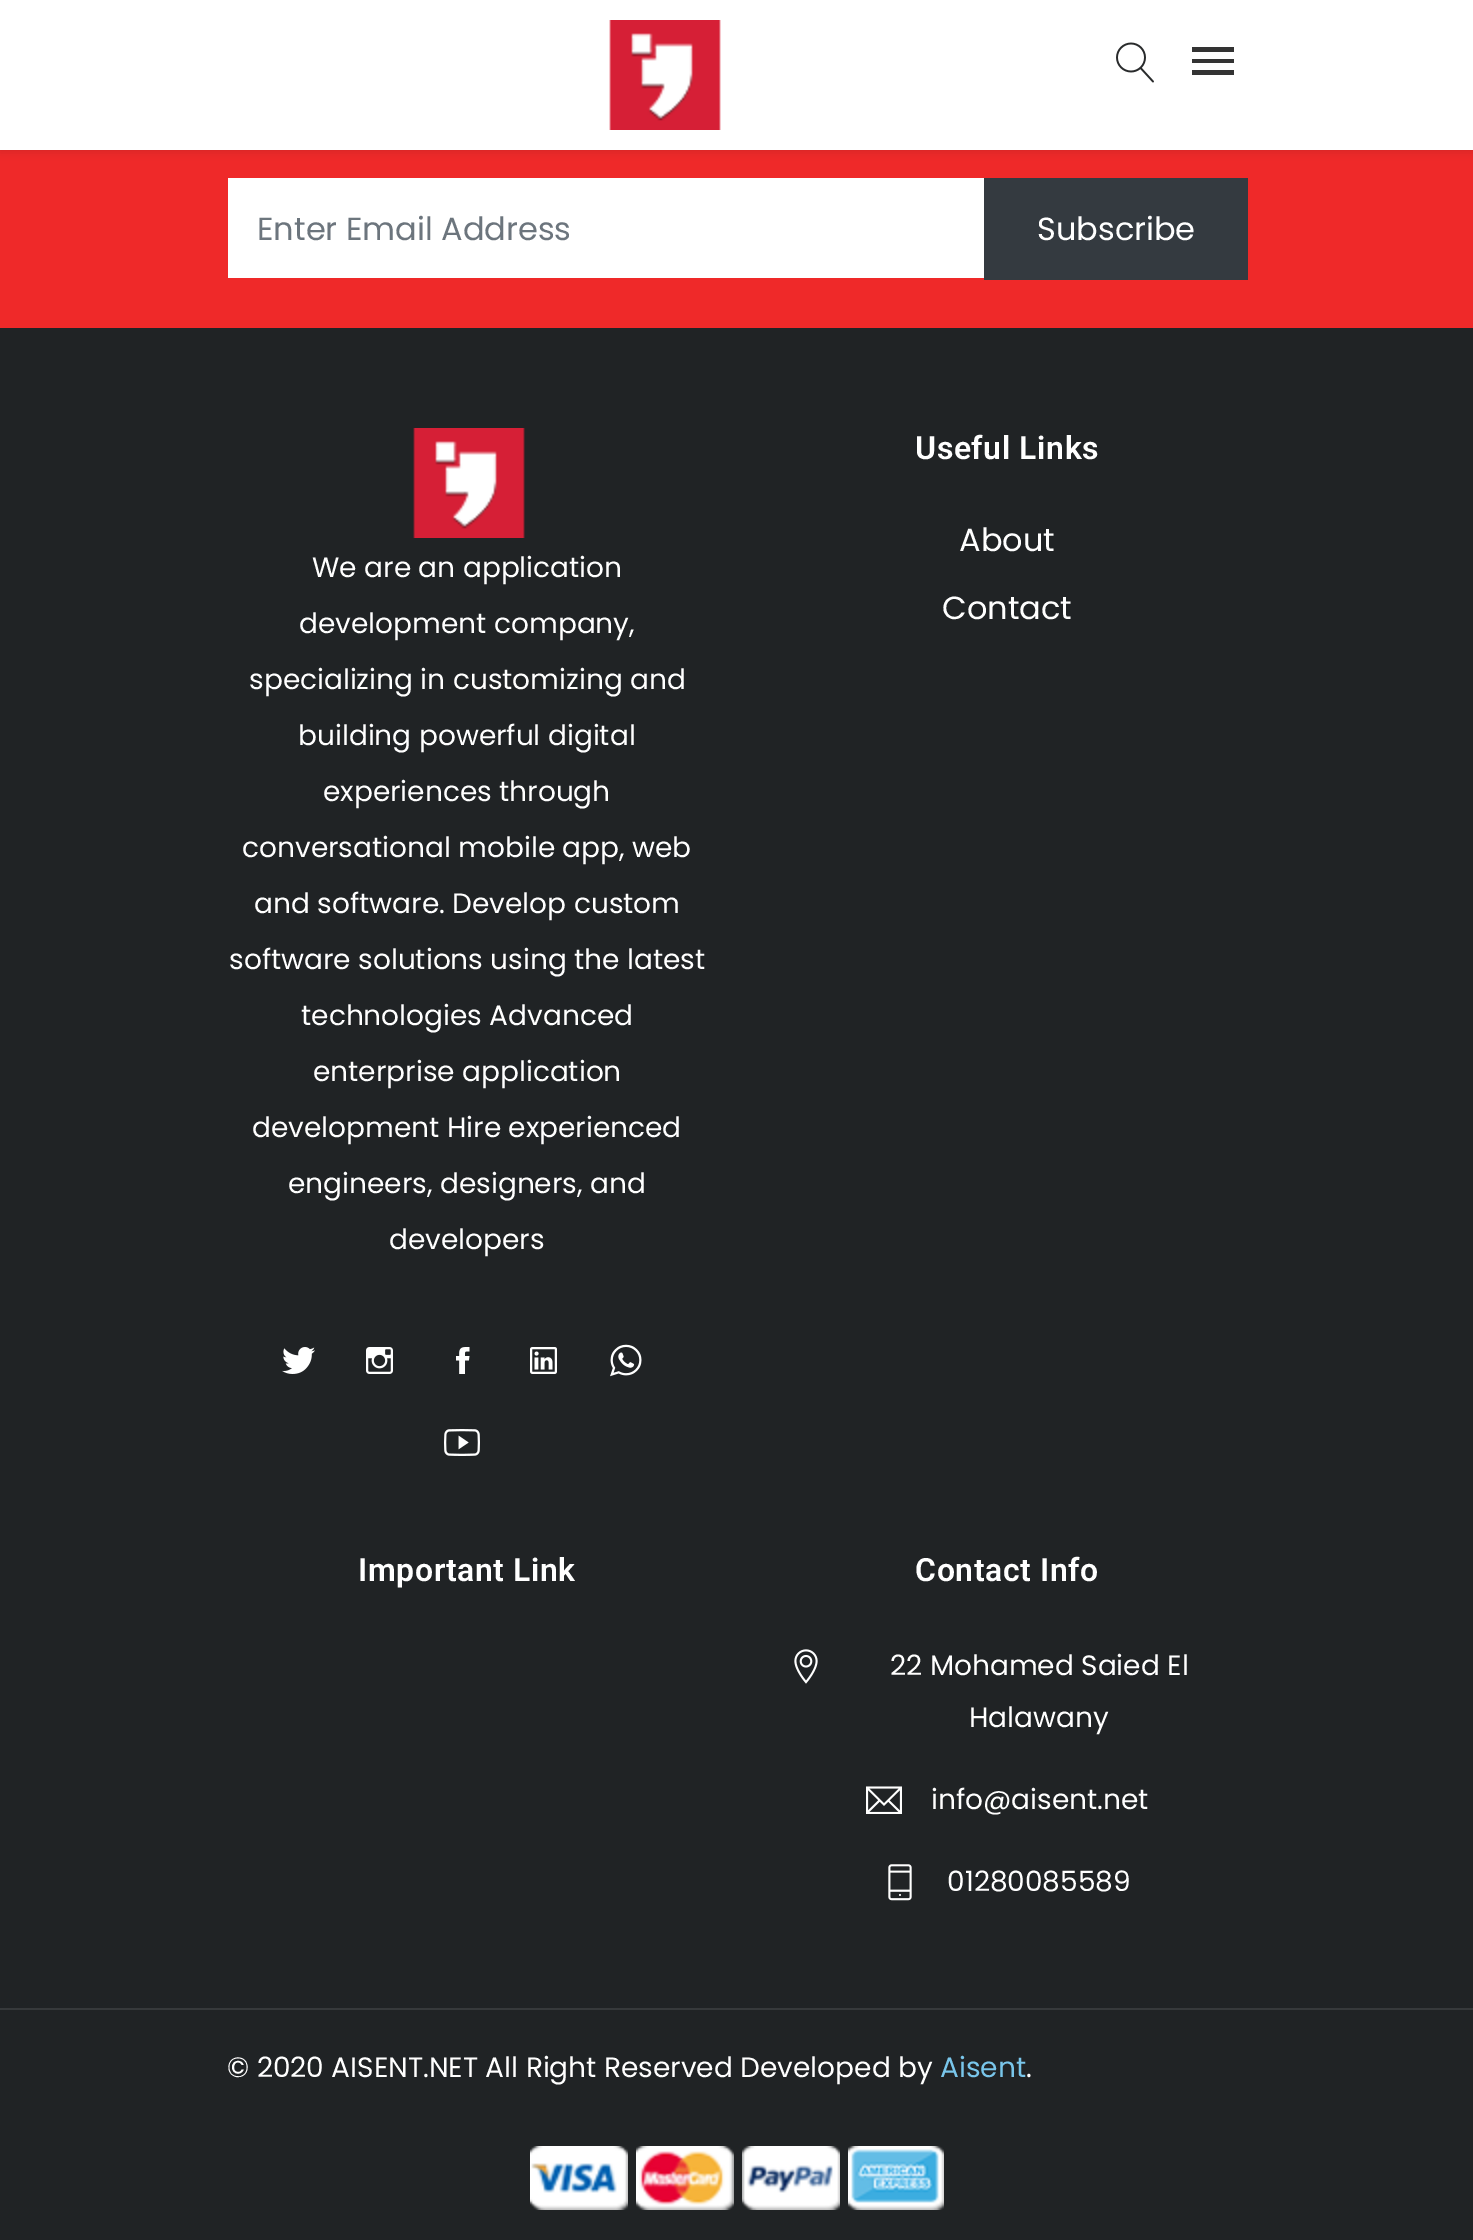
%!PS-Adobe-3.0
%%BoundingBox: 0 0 1473 2240
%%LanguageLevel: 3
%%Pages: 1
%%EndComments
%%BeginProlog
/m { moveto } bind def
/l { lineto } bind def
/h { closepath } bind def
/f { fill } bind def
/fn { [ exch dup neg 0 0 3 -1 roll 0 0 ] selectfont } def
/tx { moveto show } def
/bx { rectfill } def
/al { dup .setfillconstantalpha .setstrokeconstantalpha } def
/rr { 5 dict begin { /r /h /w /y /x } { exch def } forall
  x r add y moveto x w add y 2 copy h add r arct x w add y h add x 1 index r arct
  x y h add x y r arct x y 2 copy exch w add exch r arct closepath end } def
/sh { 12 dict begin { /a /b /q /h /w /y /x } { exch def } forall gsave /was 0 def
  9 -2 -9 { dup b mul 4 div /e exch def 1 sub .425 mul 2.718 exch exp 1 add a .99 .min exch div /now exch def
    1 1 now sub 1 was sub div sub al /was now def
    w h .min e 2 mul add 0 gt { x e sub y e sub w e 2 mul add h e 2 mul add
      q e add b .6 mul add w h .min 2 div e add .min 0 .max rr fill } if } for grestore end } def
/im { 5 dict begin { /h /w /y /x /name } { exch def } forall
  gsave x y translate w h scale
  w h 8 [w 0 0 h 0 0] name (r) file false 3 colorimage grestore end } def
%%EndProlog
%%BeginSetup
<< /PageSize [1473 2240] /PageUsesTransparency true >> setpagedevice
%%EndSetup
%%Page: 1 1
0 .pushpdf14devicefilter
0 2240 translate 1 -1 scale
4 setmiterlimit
0.937 0.161 0.161 setrgbcolor
0 0 1473 2240 bx
0 setgray
0 0 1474 150 0 5 0.15 sh
1 setgray
0 0 1473 150 bx
(image0.raw) 609 20 112 110 im
(image1.raw) 1116 42 38 41 im
0.2 setgray
1192 75 m 1192 70 l 1234 70 l 1234 75 l h 1192 63 m 1192 59 l 1234 59 l 1234 63 l h 1192 47 m 1234 47 l 1234 52 l 1192 52 l h f
1 setgray
228 178 756 100 bx
/Poppins-Regular 32 fn
0.424 0.459 0.49 setrgbcolor
(Enter Email Address) 257 240 tx
0.204 0.227 0.251 setrgbcolor
984 178 264 102 bx
1 setgray
(Subscribe) 1037 240 tx
0.125 0.137 0.145 setrgbcolor
0 328 1473 1912 bx
/Roboto-SemiBold 32 fn
1 setgray
915 459 m 0.6 0 (Useful Links) ashow
/Poppins-Regular 32 fn
(About) 959 551 tx
(Contact) 942 619 tx
(image2.raw) 413 428 112 110 im
/Poppins-Regular 28 fn
(We are an application) 312 577 tx
(development company,) 299 633 tx
(specializing in customizing and) 249 689 tx
(building powerful digital) 298 745 tx
(experiences through) 323 801 tx
(conversational mobile app, web) 242 857 tx
(and software. Develop custom) 254 913 tx
(software solutions using the latest) 229 969 tx
(technologies Advanced) 301 1025 tx
(enterprise application) 313 1081 tx
(development Hire experienced) 252 1137 tx
(engineers, designers, and) 288 1193 tx
(developers) 389 1249 tx
(image3.raw) 282 1347 33 27 im
(image4.raw) 366 1347 27 27 im
(image5.raw) 456 1347 14 27 im
(image6.raw) 530 1347 27 27 im
(image7.raw) 610 1344 32 33 im
(image8.raw) 444 1429 36 27 im
/Roboto-SemiBold 32 fn
358 1581 m 0.6 0 (Important Link) ashow
915 1581 m 0.6 0 (Contact Info) ashow
(image9.raw) 794 1649 24 35 im
/Poppins-Regular 28 fn
(22 Mohamed Saied El) 890 1675 tx
(Halawany) 969 1727 tx
(image10.raw) 866 1786 36 28 im
(info@aisent.net) 931 1809 tx
(image11.raw) 888 1864 24 37 im
(01280085589) 947 1891 tx
0.212 0.224 0.231 setrgbcolor
0 2008 1473 2 bx
1 setgray
(© 2020 AISENT.NET All Right Reserved Developed by) 227 2077 tx
0.475 0.776 0.922 setrgbcolor
(Aisent) 940 2077 tx
1 setgray
(.) 1026 2077 tx
(image12.raw) 530 2146 98 64 im
(image13.raw) 636 2146 98 64 im
(image14.raw) 742 2146 98 64 im
(image15.raw) 848 2146 96 64 im
.poppdf14devicefilter showpage
%%EOF
